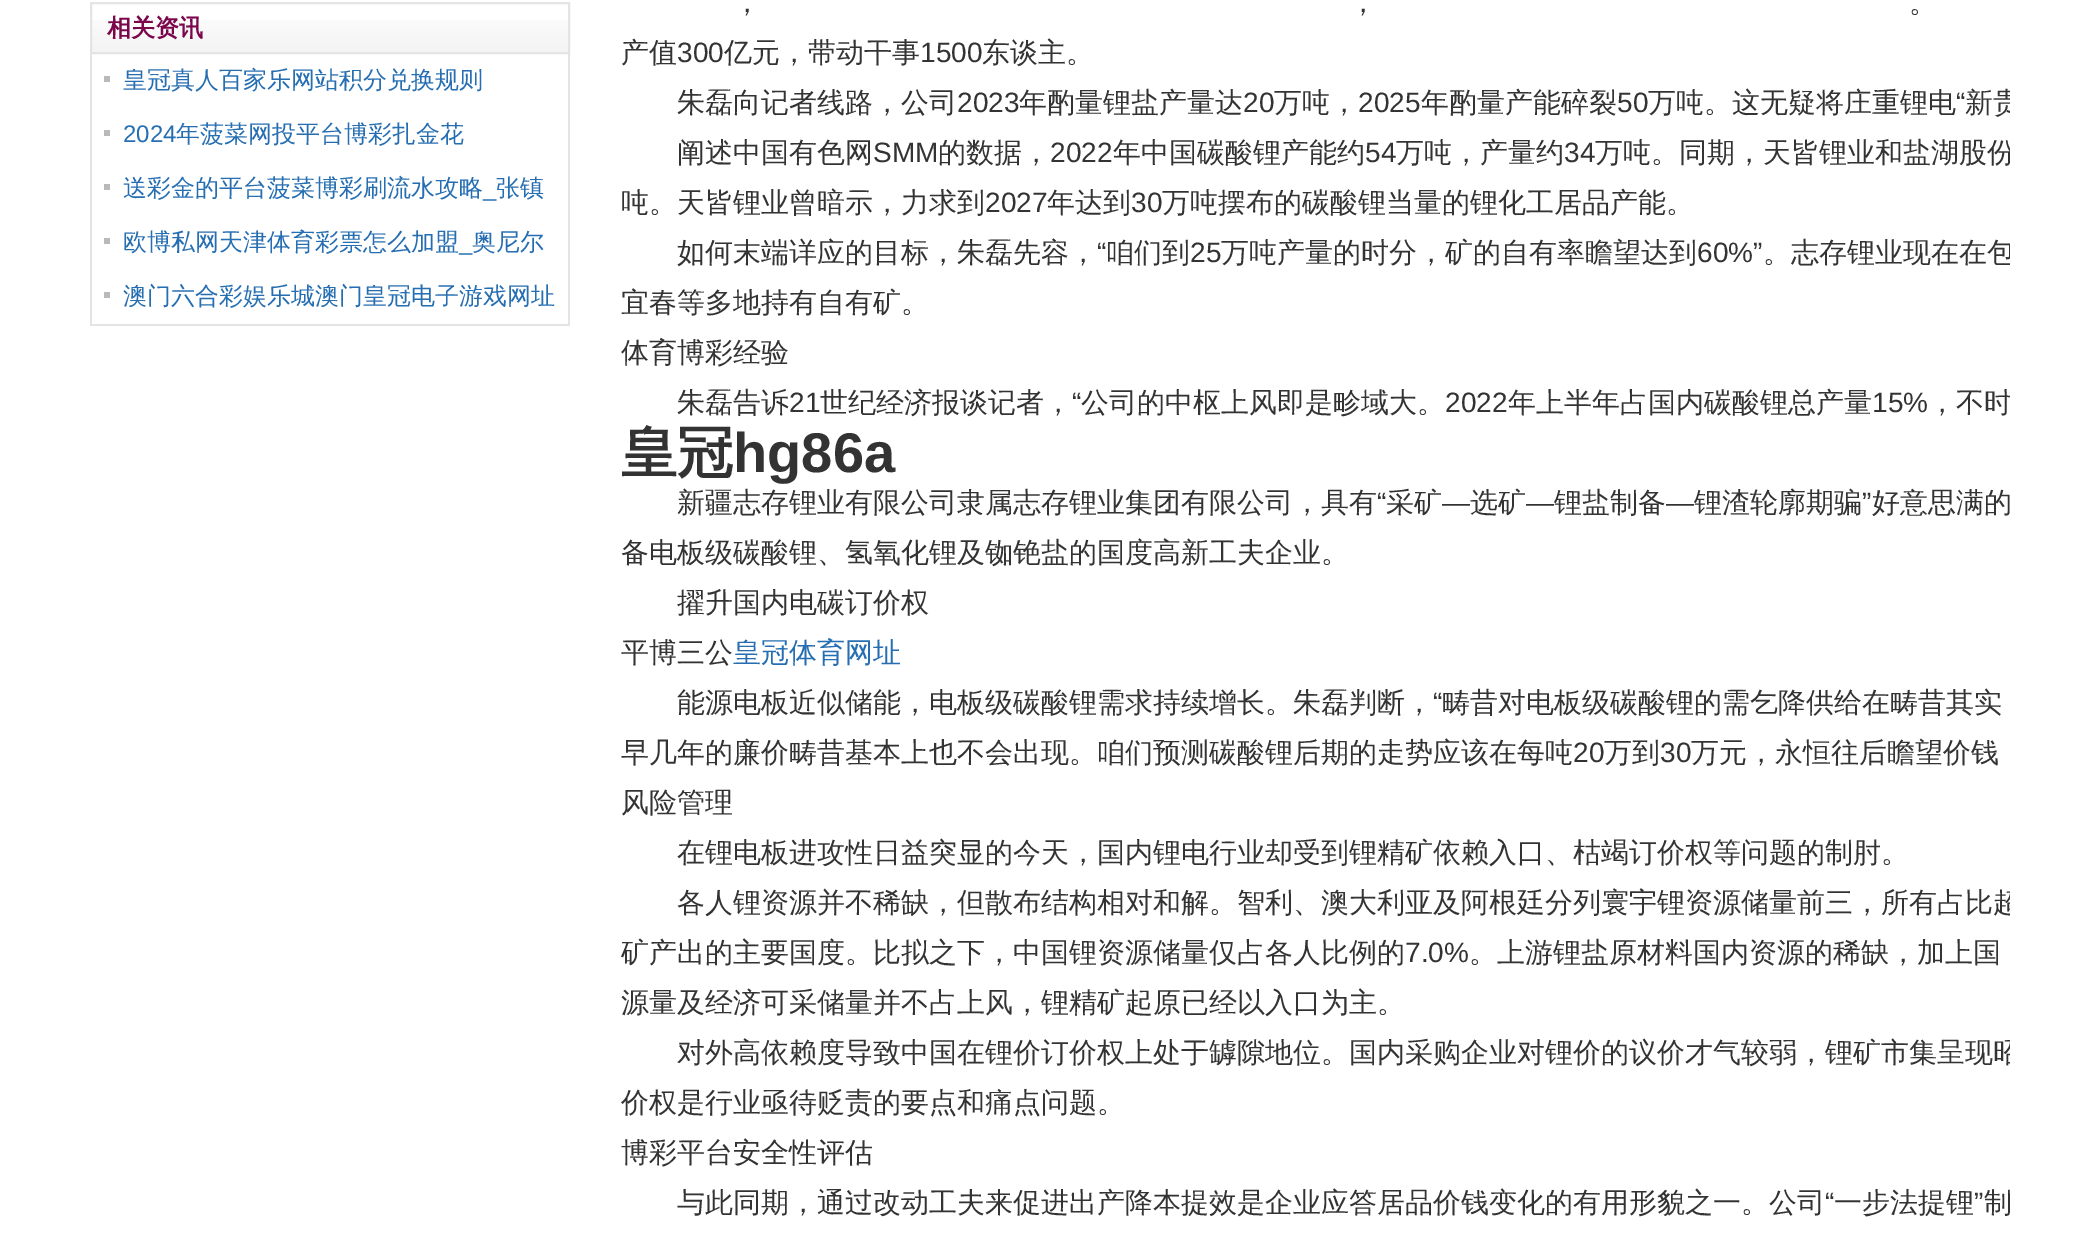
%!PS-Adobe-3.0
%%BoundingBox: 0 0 2098 1242
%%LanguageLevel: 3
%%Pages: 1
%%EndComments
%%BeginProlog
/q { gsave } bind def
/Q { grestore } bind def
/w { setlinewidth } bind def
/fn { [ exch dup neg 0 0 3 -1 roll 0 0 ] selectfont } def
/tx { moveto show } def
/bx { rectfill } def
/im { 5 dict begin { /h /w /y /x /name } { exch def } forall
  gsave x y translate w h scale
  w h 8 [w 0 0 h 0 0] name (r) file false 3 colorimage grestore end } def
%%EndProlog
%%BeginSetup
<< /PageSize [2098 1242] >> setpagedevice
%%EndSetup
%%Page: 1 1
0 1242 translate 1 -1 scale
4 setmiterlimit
1 setgray
0 0 2098 1242 bx
(image0.raw) 92 20 476 32 im
0.894 setgray
2 w
91 3 478 50 rectstroke
/WenQuanYiZenHei-Bold 24 fn
0.482 0.024 0.298 setrgbcolor
(相关资讯) 107 36 tx
0.894 setgray
568 54 2 272 bx
90 324 480 2 bx
90 54 2 272 bx
0.729 0.725 0.725 setrgbcolor
104 76 6 6 bx
/WenQuanYiZenHei-Medium 24 fn
0.145 0.431 0.694 setrgbcolor
(皇冠真人百家乐网站积分兑换规则) 123 88 tx
0.729 0.725 0.725 setrgbcolor
104 130 6 6 bx
/LiberationSans-Regular 24 fn
0.145 0.431 0.694 setrgbcolor
(2024) 123 142 tx
/WenQuanYiZenHei-Medium 24 fn
(年菠菜网投平台博彩扎金花) 176 142 tx
0.729 0.725 0.725 setrgbcolor
104 184 6 6 bx
0.145 0.431 0.694 setrgbcolor
(送彩金的平台菠菜博彩刷流水攻略) 123 196 tx
/LiberationSans-Regular 24 fn
(_) 483 196 tx
/WenQuanYiZenHei-Medium 24 fn
(张镇) 496 196 tx
0.729 0.725 0.725 setrgbcolor
104 238 6 6 bx
0.145 0.431 0.694 setrgbcolor
(欧博私网天津体育彩票怎么加盟) 123 250 tx
/LiberationSans-Regular 24 fn
(_) 459 250 tx
/WenQuanYiZenHei-Medium 24 fn
(奥尼尔) 472 250 tx
0.729 0.725 0.725 setrgbcolor
104 292 6 6 bx
0.145 0.431 0.694 setrgbcolor
(澳门六合彩娱乐城澳门皇冠电子游戏网址) 123 304 tx
/WenQuanYiZenHei-Medium 28 fn
0.2 setgray
(，) 733 12 tx
(，) 1349 12 tx
(。) 1909 12 tx
(产值) 621 62 tx
/LiberationSans-Regular 28 fn
(300) 677 62 tx
/WenQuanYiZenHei-Medium 28 fn
(亿元，带动干事) 724 62 tx
/LiberationSans-Regular 28 fn
(1500) 920 62 tx
/WenQuanYiZenHei-Medium 28 fn
(东谈主。) 982 62 tx
(朱磊向记者线路，公司) 677 112 tx
/LiberationSans-Regular 28 fn
(2023) 957 112 tx
/WenQuanYiZenHei-Medium 28 fn
(年酌量锂盐产量达) 1019 112 tx
/LiberationSans-Regular 28 fn
(20) 1243 112 tx
/WenQuanYiZenHei-Medium 28 fn
(万吨，) 1274 112 tx
/LiberationSans-Regular 28 fn
(2025) 1358 112 tx
/WenQuanYiZenHei-Medium 28 fn
(年酌量产能碎裂) 1421 112 tx
/LiberationSans-Regular 28 fn
(50) 1617 112 tx
/WenQuanYiZenHei-Medium 28 fn
(万吨。这无疑将庄重锂电) 1648 112 tx
/LiberationSans-Regular 28 fn
(“) 1956 112 tx
q
586 0 1424 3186 rectclip
/WenQuanYiZenHei-Medium 28 fn
(新贵) 1965 112 tx
Q
/WenQuanYiZenHei-Medium 28 fn
(阐述中国有色网) 677 162 tx
/LiberationSans-Regular 28 fn
(SMM) 873 162 tx
/WenQuanYiZenHei-Medium 28 fn
(的数据，) 938 162 tx
/LiberationSans-Regular 28 fn
(2022) 1050 162 tx
/WenQuanYiZenHei-Medium 28 fn
(年中国碳酸锂产能约) 1113 162 tx
/LiberationSans-Regular 28 fn
(54) 1365 162 tx
/WenQuanYiZenHei-Medium 28 fn
(万吨，产量约) 1396 162 tx
/LiberationSans-Regular 28 fn
(34) 1564 162 tx
q
586 0 1424 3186 rectclip
/WenQuanYiZenHei-Medium 28 fn
(万吨。同期，天皆锂业和盐湖股份) 1595 162 tx
Q
/WenQuanYiZenHei-Medium 28 fn
(吨。天皆锂业曾暗示，力求到) 621 212 tx
/LiberationSans-Regular 28 fn
(2027) 985 212 tx
/WenQuanYiZenHei-Medium 28 fn
(年达到) 1047 212 tx
/LiberationSans-Regular 28 fn
(30) 1131 212 tx
/WenQuanYiZenHei-Medium 28 fn
(万吨摆布的碳酸锂当量的锂化工居品产能。) 1162 212 tx
(如何末端详应的目标，朱磊先容，) 677 262 tx
/LiberationSans-Regular 28 fn
(“) 1097 262 tx
/WenQuanYiZenHei-Medium 28 fn
(咱们到) 1106 262 tx
/LiberationSans-Regular 28 fn
(25) 1190 262 tx
/WenQuanYiZenHei-Medium 28 fn
(万吨产量的时分，矿的自有率瞻望达到) 1221 262 tx
/LiberationSans-Regular 28 fn
(60%”) 1697 262 tx
q
586 0 1424 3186 rectclip
/WenQuanYiZenHei-Medium 28 fn
(。志存锂业现在在包) 1763 262 tx
Q
/WenQuanYiZenHei-Medium 28 fn
(宜春等多地持有自有矿。) 621 312 tx
(体育博彩经验) 621 362 tx
(朱磊告诉) 677 412 tx
/LiberationSans-Regular 28 fn
(21) 789 412 tx
/WenQuanYiZenHei-Medium 28 fn
(世纪经济报谈记者，) 820 412 tx
/LiberationSans-Regular 28 fn
(“) 1072 412 tx
/WenQuanYiZenHei-Medium 28 fn
(公司的中枢上风即是畛域大。) 1081 412 tx
/LiberationSans-Regular 28 fn
(2022) 1445 412 tx
/WenQuanYiZenHei-Medium 28 fn
(年上半年占国内碳酸锂总产量) 1508 412 tx
/LiberationSans-Regular 28 fn
(15%) 1872 412 tx
q
586 0 1424 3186 rectclip
/WenQuanYiZenHei-Medium 28 fn
(，不时) 1928 412 tx
Q
/WenQuanYiZenHei-Bold 56 fn
(皇冠) 621 472 tx
/LiberationSans-Bold 56 fn
(hg86a) 733 472 tx
/WenQuanYiZenHei-Medium 28 fn
(新疆志存锂业有限公司隶属志存锂业集团有限公司，具有) 677 512 tx
/LiberationSans-Regular 28 fn
(“) 1377 512 tx
/WenQuanYiZenHei-Medium 28 fn
(采矿) 1386 512 tx
/LiberationSans-Regular 28 fn
(—) 1442 512 tx
/WenQuanYiZenHei-Medium 28 fn
(选矿) 1470 512 tx
/LiberationSans-Regular 28 fn
(—) 1526 512 tx
/WenQuanYiZenHei-Medium 28 fn
(锂盐制备) 1554 512 tx
/LiberationSans-Regular 28 fn
(—) 1666 512 tx
/WenQuanYiZenHei-Medium 28 fn
(锂渣轮廓期骗) 1694 512 tx
/LiberationSans-Regular 28 fn
(”) 1862 512 tx
/WenQuanYiZenHei-Medium 28 fn
(好意思满的) 1872 512 tx
(备电板级碳酸锂、氢氧化锂及铷铯盐的国度高新工夫企业。) 621 562 tx
(擢升国内电碳订价权) 677 612 tx
(平博三公) 621 662 tx
0.145 0.431 0.694 setrgbcolor
(皇冠体育网址) 733 662 tx
0.2 setgray
(能源电板近似储能，电板级碳酸锂需求持续增长。朱磊判断，) 677 712 tx
/LiberationSans-Regular 28 fn
(“) 1433 712 tx
/WenQuanYiZenHei-Medium 28 fn
(畴昔对电板级碳酸锂的需乞降供给在畴昔其实) 1442 712 tx
(早几年的廉价畴昔基本上也不会出现。咱们预测碳酸锂后期的走势应该在每吨) 621 762 tx
/LiberationSans-Regular 28 fn
(20) 1573 762 tx
/WenQuanYiZenHei-Medium 28 fn
(万到) 1604 762 tx
/LiberationSans-Regular 28 fn
(30) 1660 762 tx
/WenQuanYiZenHei-Medium 28 fn
(万元，永恒往后瞻望价钱) 1691 762 tx
(风险管理) 621 812 tx
(在锂电板进攻性日益突显的今天，国内锂电行业却受到锂精矿依赖入口、枯竭订价权等问题的制肘。) 677 862 tx
q
586 0 1424 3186 rectclip
(各人锂资源并不稀缺，但散布结构相对和解。智利、澳大利亚及阿根廷分列寰宇锂资源储量前三，所有占比超) 677 912 tx
Q
(矿产出的主要国度。比拟之下，中国锂资源储量仅占各人比例的) 621 962 tx
/LiberationSans-Regular 28 fn
(7.0%) 1405 962 tx
/WenQuanYiZenHei-Medium 28 fn
(。上游锂盐原材料国内资源的稀缺，加上国) 1469 962 tx
(源量及经济可采储量并不占上风，锂精矿起原已经以入口为主。) 621 1012 tx
q
586 0 1424 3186 rectclip
(对外高依赖度导致中国在锂价订价权上处于罅隙地位。国内采购企业对锂价的议价才气较弱，锂矿市集呈现昭) 677 1062 tx
Q
(价权是行业亟待贬责的要点和痛点问题。) 621 1112 tx
(博彩平台安全性评估) 621 1162 tx
(与此同期，通过改动工夫来促进出产降本提效是企业应答居品价钱变化的有用形貌之一。公司) 677 1212 tx
/LiberationSans-Regular 28 fn
(“) 1825 1212 tx
/WenQuanYiZenHei-Medium 28 fn
(一步法提锂) 1834 1212 tx
/LiberationSans-Regular 28 fn
(”) 1974 1212 tx
/WenQuanYiZenHei-Medium 28 fn
(制) 1984 1212 tx
showpage
%%EOF
